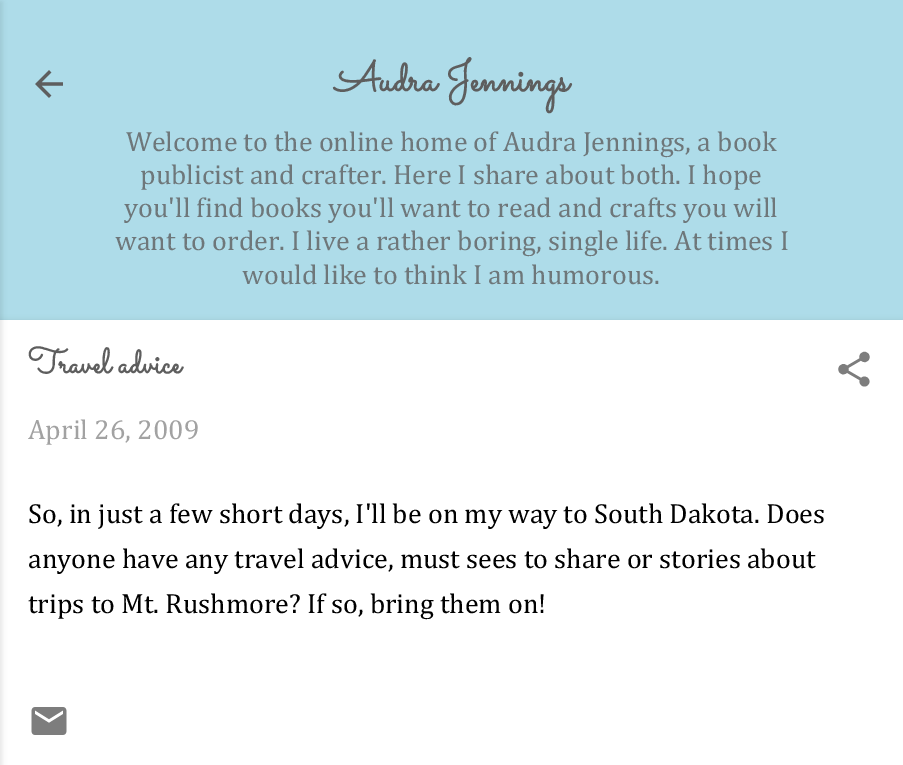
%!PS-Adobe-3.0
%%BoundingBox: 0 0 903 765
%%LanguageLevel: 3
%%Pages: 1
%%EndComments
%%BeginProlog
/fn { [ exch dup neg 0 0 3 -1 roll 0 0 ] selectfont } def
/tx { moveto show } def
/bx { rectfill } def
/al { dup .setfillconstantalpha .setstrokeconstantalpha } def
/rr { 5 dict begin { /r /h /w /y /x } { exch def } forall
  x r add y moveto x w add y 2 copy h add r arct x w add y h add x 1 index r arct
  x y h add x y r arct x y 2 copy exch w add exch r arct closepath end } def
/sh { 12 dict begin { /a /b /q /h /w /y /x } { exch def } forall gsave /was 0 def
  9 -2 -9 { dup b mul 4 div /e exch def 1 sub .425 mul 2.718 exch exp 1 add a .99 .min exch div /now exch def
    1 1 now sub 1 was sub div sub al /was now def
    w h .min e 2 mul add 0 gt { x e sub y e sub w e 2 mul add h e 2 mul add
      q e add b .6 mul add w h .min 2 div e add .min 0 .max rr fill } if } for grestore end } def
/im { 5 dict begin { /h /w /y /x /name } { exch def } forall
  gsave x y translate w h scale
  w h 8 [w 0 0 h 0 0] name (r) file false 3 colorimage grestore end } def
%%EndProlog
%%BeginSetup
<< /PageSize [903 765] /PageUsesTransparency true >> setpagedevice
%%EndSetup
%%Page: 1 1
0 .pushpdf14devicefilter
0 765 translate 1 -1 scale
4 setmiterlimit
0.682 0.863 0.914 setrgbcolor
0 0 903 765 bx
0.345 0.376 0.384 setrgbcolor
0 322 903 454 0 3.5 0.3 sh
1 setgray
0 320 903 445 bx
0 setgray
-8 2 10 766 0 2.5 0.1 sh
(image0.raw) 35 70 28 28 im
/Sacramento-Bold 42 fn
0.369 setgray
(Audra Jennings) 335 91 tx
/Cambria-Regular 28 fn
0.431 0.467 0.478 setrgbcolor
(Welcome to the online home of Audra Jennings, a book) 126 151 tx
(publicist and crafter. Here I share about both. I hope) 140 184 tx
(you'll find books you'll want to read and crafts you will) 124 217 tx
(want to order. I live a rather boring, single life. At times I) 115 250 tx
(would like to think I am humorous.) 242 284 tx
/Sacramento-Bold 35 fn
0.369 setgray
(Travel advice) 28 373 tx
(image1.raw) 838 351 32 36 im
/Cambria-Regular 28 fn
0.635 setgray
(April 26, 2009) 28 439 tx
0 setgray
(So, in just a few short days, I'll be on my way to South Dakota. Does) 28 523 tx
(anyone have any travel advice, must sees to share or stories about) 28 568 tx
(trips to Mt. Rushmore? If so, bring them on!) 28 613 tx
(image2.raw) 31 707 36 28 im
.poppdf14devicefilter showpage
%%EOF
